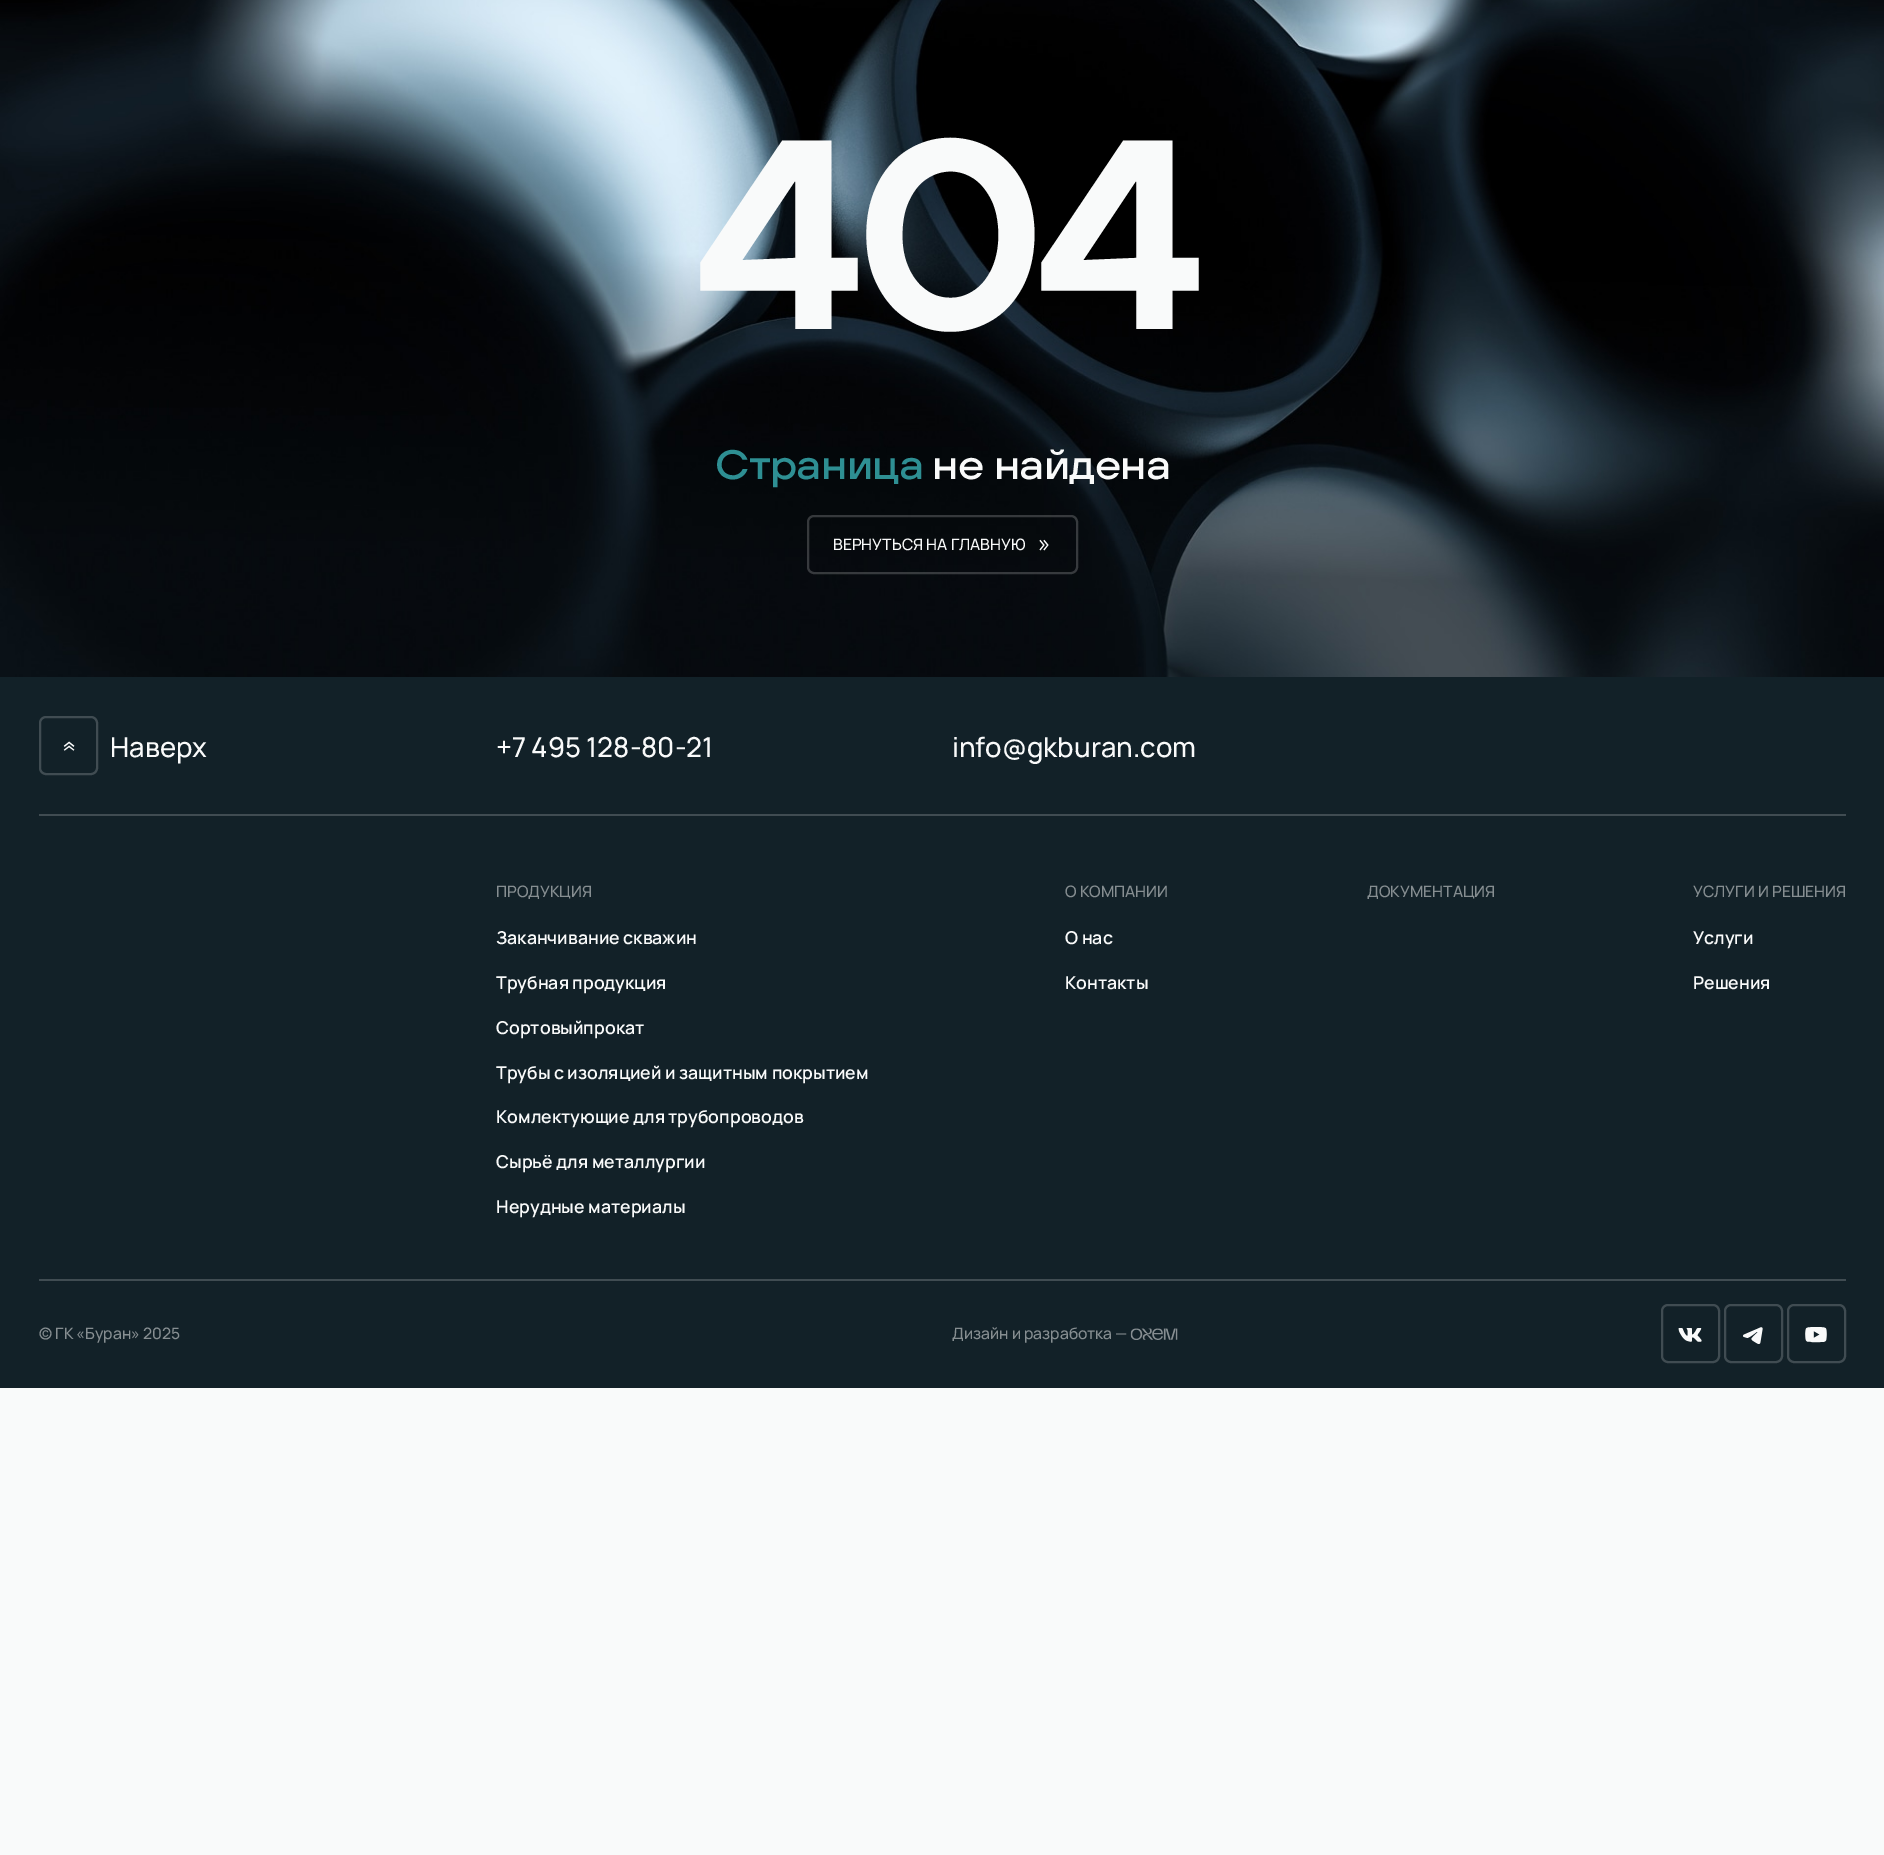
%!PS-Adobe-3.0
%%BoundingBox: 0 0 1884 1855
%%LanguageLevel: 3
%%Pages: 1
%%EndComments
%%BeginProlog
/m { moveto } bind def
/S { stroke } bind def
/w { setlinewidth } bind def
/fn { [ exch dup neg 0 0 3 -1 roll 0 0 ] selectfont } def
/tx { moveto show } def
/bx { rectfill } def
/al { dup .setfillconstantalpha .setstrokeconstantalpha } def
/rr { 5 dict begin { /r /h /w /y /x } { exch def } forall
  x r add y moveto x w add y 2 copy h add r arct x w add y h add x 1 index r arct
  x y h add x y r arct x y 2 copy exch w add exch r arct closepath end } def
/im { 5 dict begin { /h /w /y /x /name } { exch def } forall
  gsave x y translate w h scale
  w h 8 [w 0 0 h 0 0] name (r) file false 3 colorimage grestore end } def
%%EndProlog
%%BeginSetup
<< /PageSize [1884 1855] /PageUsesTransparency true >> setpagedevice
%%EndSetup
%%Page: 1 1
0 .pushpdf14devicefilter
0 1855 translate 1 -1 scale
4 setmiterlimit
0.976 0.98 0.98 setrgbcolor
0 0 1884 1855 bx
(image0.raw) 0 0 1884 677 im
/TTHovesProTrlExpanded-Bold 259 fn
693 329 m -8 0 (404) ashow
/TTHovesProTrlExpanded-Medium 41.25 fn
0.18 0.561 0.576 setrgbcolor
715 479 m -0.75 0 (Страница) ashow
0.976 0.98 0.98 setrgbcolor
932 479 m -0.75 0 (не найдена) ashow
0.2 al
2 w
808 516 269 57 6 rr S
/Manrope-Medium 15.75 fn
1 al
(ВЕРНУТЬСЯ НА ГЛАВНУЮ) 833 550 tx
(image1.raw) 1039 539 10 12 im
0.071 0.129 0.157 setrgbcolor
0 677 1884 711 bx
0.251 0.298 0.322 setrgbcolor
40 717 57 57 6 rr S
(image2.raw) 63 741 12 10 im
/Manrope-Medium 27.5 fn
0.976 0.98 0.98 setrgbcolor
(Наверх) 110 757 tx
(+7 495 128-80-21) 496 757 tx
(info@gkburan.com) 952 757 tx
0.251 0.298 0.322 setrgbcolor
39 814 1807 2 bx
/Manrope-Medium 15.75 fn
0.525 0.557 0.569 setrgbcolor
(ПРОДУКЦИЯ) 496 897 tx
/Manrope-SemiBold 17.7 fn
0.976 0.98 0.98 setrgbcolor
(Заканчивание скважин) 496 944 tx
(Трубная продукция) 496 989 tx
(Сортовыйпрокат) 496 1034 tx
(Трубы с изоляцией и защитным покрытием) 496 1079 tx
(Комлектующие для трубопроводов) 496 1123 tx
(Сырьё для металлургии) 496 1168 tx
(Нерудные материалы) 496 1213 tx
/Manrope-Medium 15.75 fn
0.525 0.557 0.569 setrgbcolor
(О КОМПАНИИ) 1065 897 tx
/Manrope-SemiBold 17.7 fn
0.976 0.98 0.98 setrgbcolor
(О нас) 1065 944 tx
(Контакты) 1065 989 tx
/Manrope-Medium 15.75 fn
0.525 0.557 0.569 setrgbcolor
(ДОКУМЕНТАЦИЯ) 1367 897 tx
(УСЛУГИ И РЕШЕНИЯ) 1693 897 tx
/Manrope-SemiBold 17.7 fn
0.976 0.98 0.98 setrgbcolor
(Услуги) 1693 944 tx
(Решения) 1693 989 tx
0.251 0.298 0.322 setrgbcolor
39 1279 1807 2 bx
/Manrope-Medium 15.75 fn
0.525 0.557 0.569 setrgbcolor
(© ГК «Буран» 2025) 39 1339 tx
(Дизайн и разработка —) 952 1339 tx
(image3.raw) 1130 1328 48 12 im
0.251 0.298 0.322 setrgbcolor
1662 1305 57 57 6 rr S
(image4.raw) 1678 1328 24 14 im
1725 1305 57 57 6 rr S
(image5.raw) 1743 1327 20 17 im
1788 1305 57 57 6 rr S
(image6.raw) 1805 1327 22 16 im
.poppdf14devicefilter showpage
%%EOF
